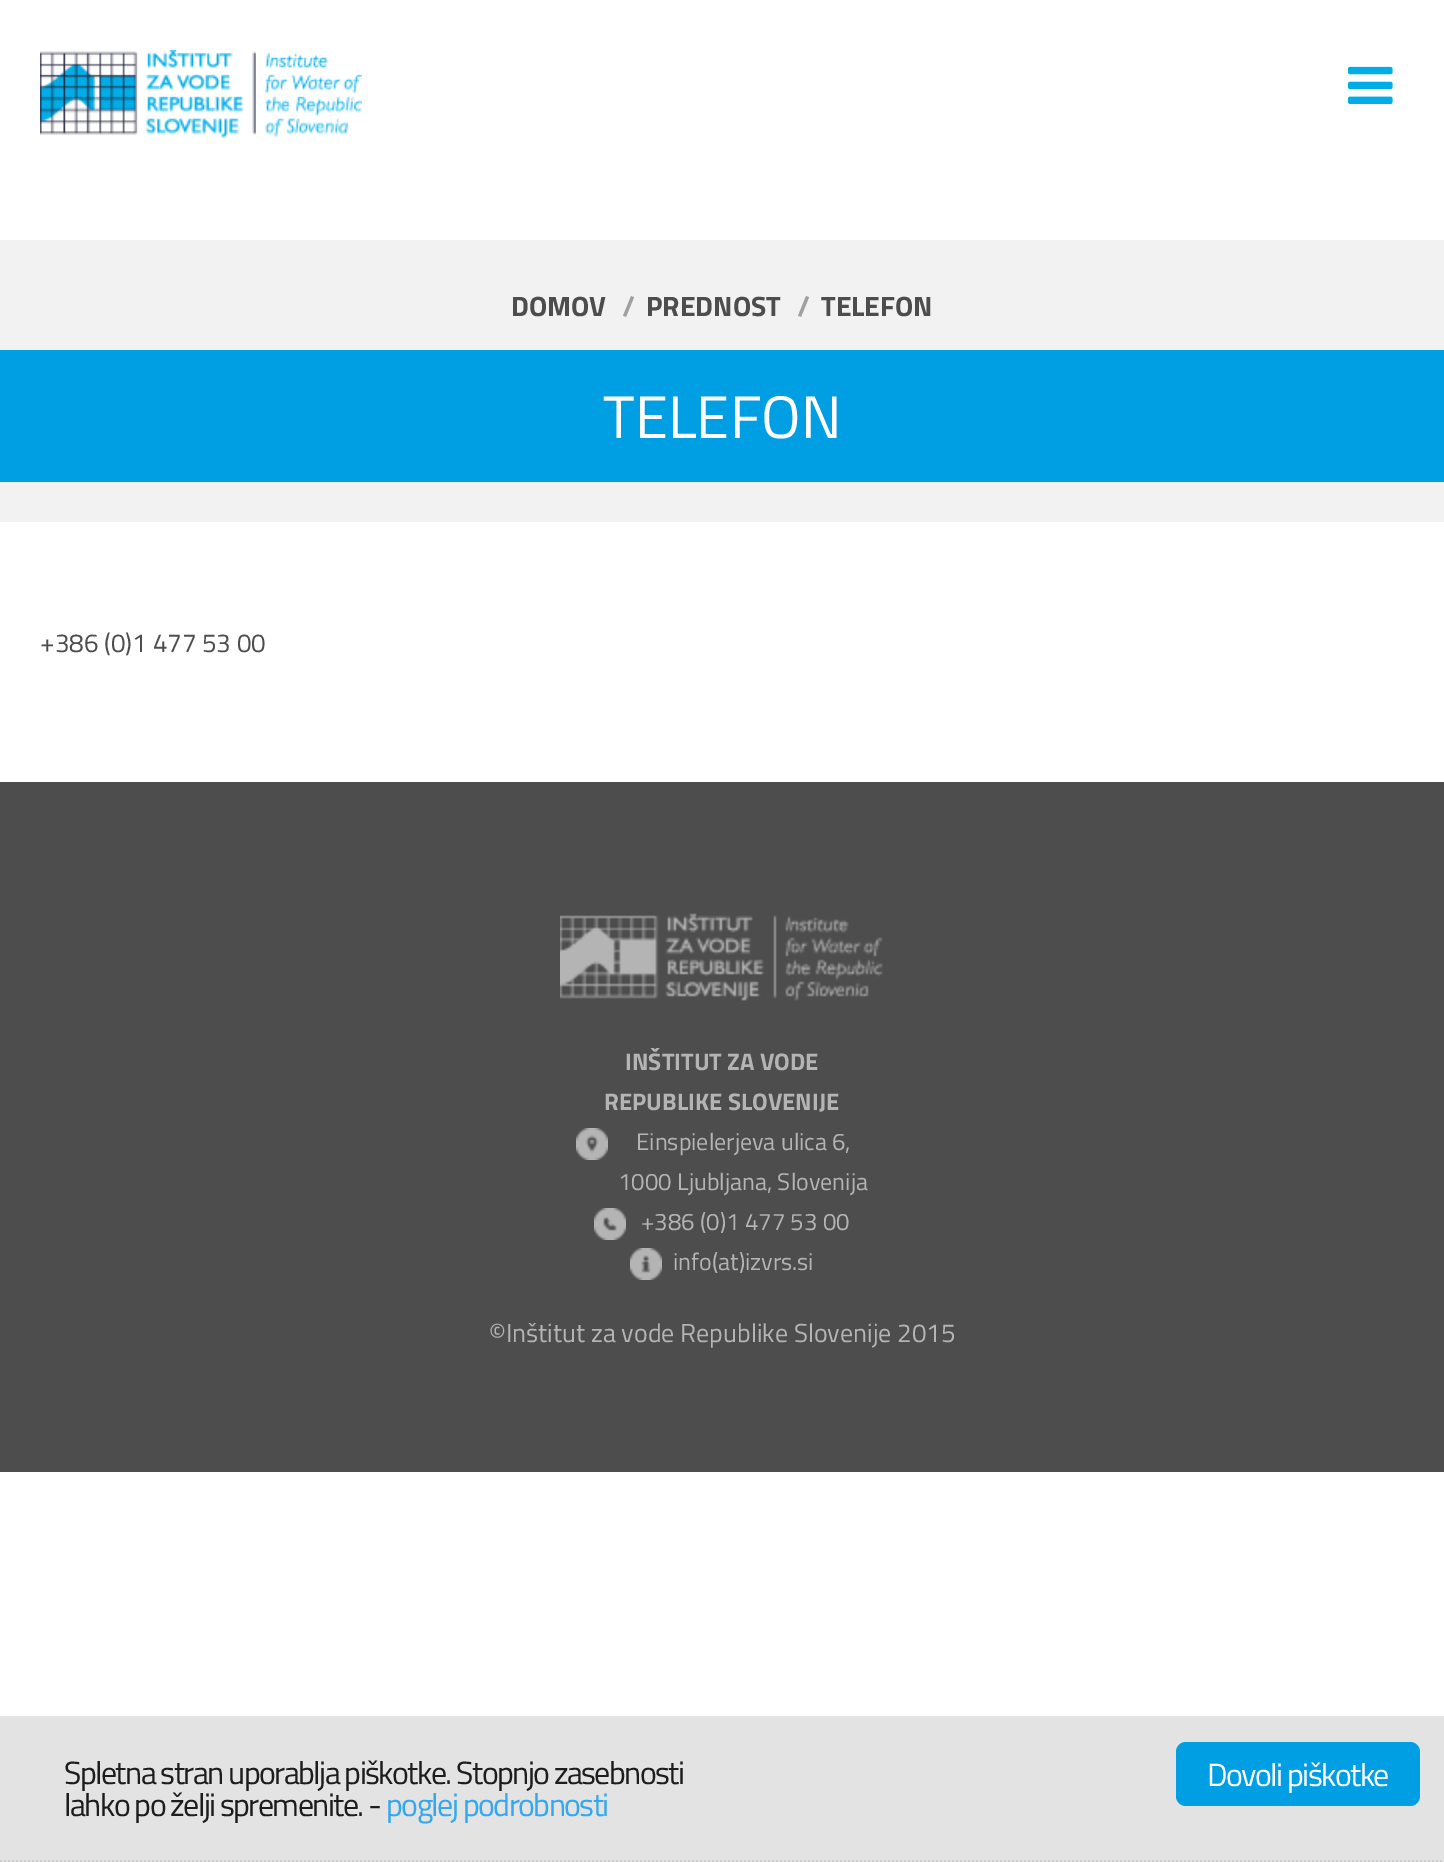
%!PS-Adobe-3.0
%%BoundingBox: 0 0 1444 1862
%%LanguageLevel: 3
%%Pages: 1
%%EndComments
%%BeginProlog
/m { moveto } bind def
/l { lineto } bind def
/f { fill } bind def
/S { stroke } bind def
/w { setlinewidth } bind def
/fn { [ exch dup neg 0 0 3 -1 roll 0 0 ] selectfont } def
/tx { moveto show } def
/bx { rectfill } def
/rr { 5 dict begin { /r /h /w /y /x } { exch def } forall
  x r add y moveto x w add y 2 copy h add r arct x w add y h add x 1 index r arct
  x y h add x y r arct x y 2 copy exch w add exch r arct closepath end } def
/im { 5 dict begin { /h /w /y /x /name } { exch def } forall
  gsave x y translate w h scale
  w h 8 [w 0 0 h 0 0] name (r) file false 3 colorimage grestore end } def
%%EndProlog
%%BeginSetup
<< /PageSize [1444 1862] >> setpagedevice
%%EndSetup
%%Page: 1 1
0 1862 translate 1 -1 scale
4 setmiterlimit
1 setgray
0 0 1444 1862 bx
(image0.raw) 40 50 322 88 im
(image1.raw) 1348 66 45 38 im
0.949 setgray
0 240 1444 282 bx
/TitilliumWeb-Bold 28 fn
0.302 setgray
(DOMOV) 511 316 tx
0.627 setgray
(/) 622 316 tx
0.302 setgray
(PREDNOST) 646 316 tx
0.627 setgray
(/) 797 316 tx
0.302 setgray
(TELEFON) 821 316 tx
0 0.62 0.89 setrgbcolor
0 350 1444 132 bx
/TitilliumWeb-Regular 60 fn
1 setgray
(TELEFON) 603 438 tx
/TitilliumWeb-Regular 26 fn
0.302 setgray
(+386 \(0\)1 477 53 00) 40 652 tx
0 782 1444 690 bx
(image2.raw) 560 913 323 88 im
/TitilliumWeb-Bold 24 fn
0.706 setgray
(INŠTITUT ZA VODE) 625 1070 tx
(REPUBLIKE SLOVENIJE) 604 1110 tx
(image3.raw) 576 1128 32 32 im
/TitilliumWeb-Regular 24 fn
(Einspielerjeva ulica 6,) 636 1150 tx
(1000 Ljubljana, Slovenija) 618 1190 tx
(image4.raw) 594 1208 32 32 im
(+386 \(0\)1 477 53 00) 641 1230 tx
(image5.raw) 630 1248 32 32 im
(info\(at\)izvrs.si) 673 1270 tx
/TitilliumWeb-Regular 26 fn
(©Inštitut za vode Republike Slovenije 2015) 489 1342 tx
0.89 setgray
0 1716 1444 146 bx
0.8 setgray
2 w
[2 2] 0 setdash
0 1861 m 1444 1861 l S
/TitilliumWeb-Regular 32 fn
0.114 setgray
64 1784 m -1.6 0 (Spletna stran uporablja piškotke. Stopnjo zasebnosti) ashow
64 1816 m -1.6 0 (lahko po želji spremenite. -) ashow
0.192 0.659 0.941 setrgbcolor
386 1816 m -1.6 0 (poglej podrobnosti) ashow
0 0.62 0.89 setrgbcolor
1176 1742 244 64 10 rr f
1 setgray
1207 1786 m -1.6 0 (Dovoli piškotke) ashow
showpage
%%EOF
